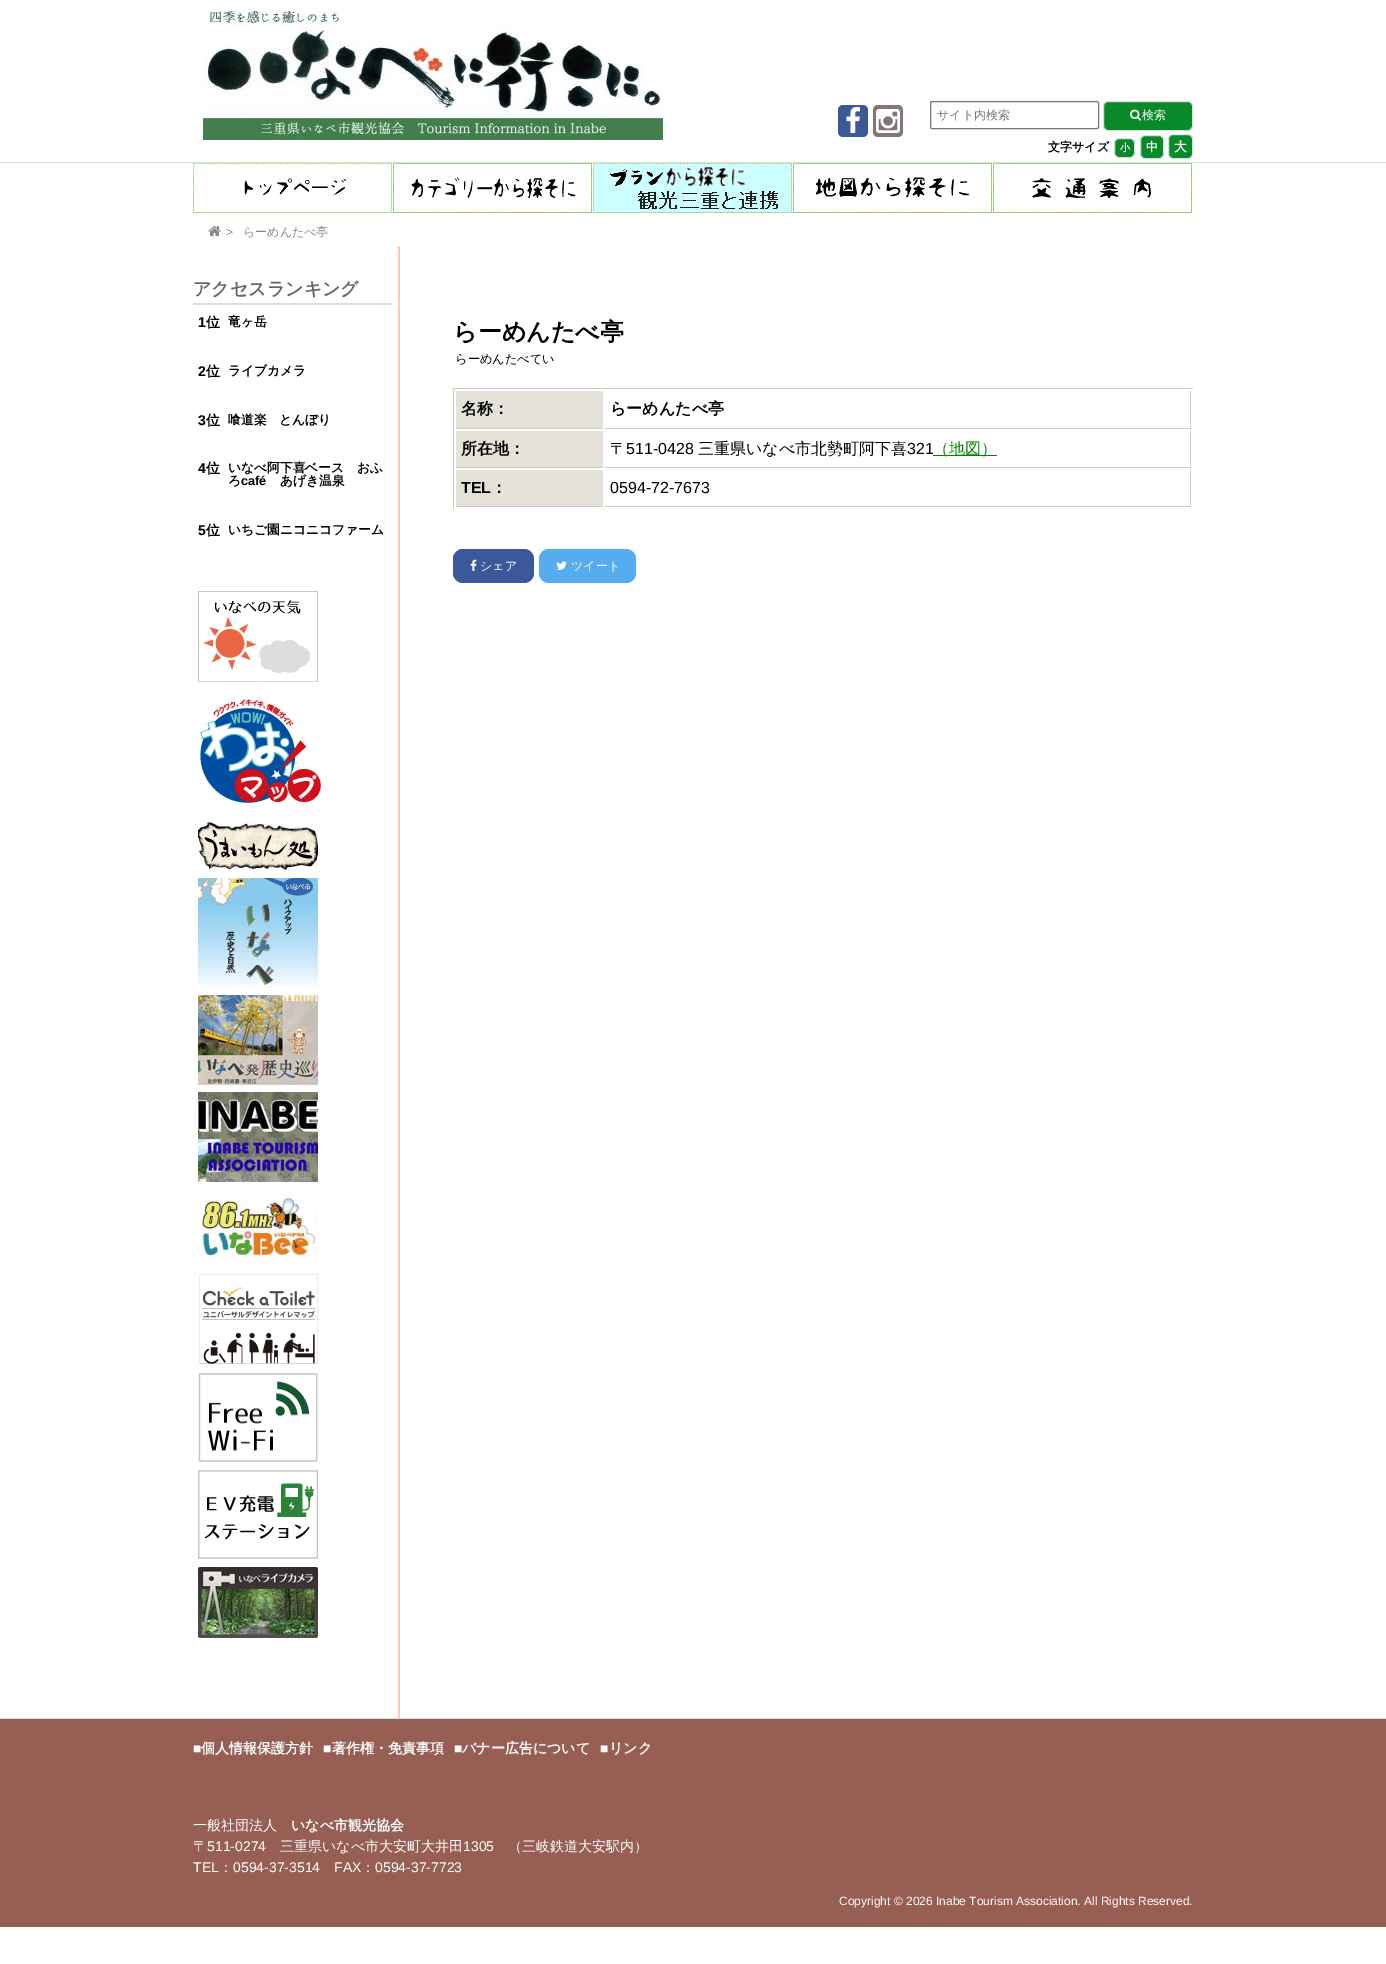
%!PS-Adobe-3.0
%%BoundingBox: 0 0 1386 1964
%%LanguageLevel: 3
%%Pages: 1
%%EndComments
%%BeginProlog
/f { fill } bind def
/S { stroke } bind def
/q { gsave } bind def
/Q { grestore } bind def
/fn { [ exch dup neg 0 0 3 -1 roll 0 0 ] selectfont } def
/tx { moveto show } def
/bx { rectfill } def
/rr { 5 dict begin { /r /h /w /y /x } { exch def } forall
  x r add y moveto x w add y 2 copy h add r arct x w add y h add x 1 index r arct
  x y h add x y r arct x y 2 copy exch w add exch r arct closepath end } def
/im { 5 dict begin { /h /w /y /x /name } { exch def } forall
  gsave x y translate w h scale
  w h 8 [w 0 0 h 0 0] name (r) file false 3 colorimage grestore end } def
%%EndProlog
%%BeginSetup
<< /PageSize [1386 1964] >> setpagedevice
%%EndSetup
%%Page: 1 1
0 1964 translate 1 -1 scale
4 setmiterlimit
1 setgray
0 0 1386 1964 bx
0.867 setgray
0 162 1386 1 bx
(image0.raw) 203 10 460 130 im
0.231 0.349 0.596 setrgbcolor
838 105 30 32 5 rr f
(image1.raw) 846 107 14 26 im
0.522 0.463 0.463 setrgbcolor
873 105 30 32 5 rr f
(image2.raw) 876 109 24 24 im
0.463 setgray
930.5 101.5 168 27 1.5 rr S
/WenQuanYiZenHei-Medium 12 fn
0.459 setgray
(サイト内検索) 937 119 tx
0.031 0.541 0.161 setrgbcolor
1103.5 101.5 89 29 4.5 rr q f Q
0.867 setgray
S
(image3.raw) 1130 109 12 12 im
1 setgray
(検索) 1142 119 tx
/WenQuanYiZenHei-Bold 12 fn
0 setgray
(文字サイズ) 1048 151 tx
0.031 0.541 0.161 setrgbcolor
1114.5 138.5 20 19 4.5 rr q f Q
0.867 setgray
S
/WenQuanYiZenHei-Bold 10 fn
1 setgray
(小) 1120 151 tx
0.031 0.541 0.161 setrgbcolor
1140.5 135.5 23 23 4.5 rr q f Q
0.867 setgray
S
/WenQuanYiZenHei-Bold 12 fn
1 setgray
(中) 1146 151 tx
0.031 0.541 0.161 setrgbcolor
1168.5 134.5 24 24 4.5 rr q f Q
0.867 setgray
S
/WenQuanYiZenHei-Bold 12.75 fn
1 setgray
(大) 1174 151 tx
(image4.raw) 193 163 199 50 im
(image5.raw) 393 163 199 50 im
(image6.raw) 593 163 199 50 im
(image7.raw) 793 163 199 50 im
(image8.raw) 993 163 199 50 im
(image9.raw) 208 226 13 10 im
/LiberationSans-Regular 12 fn
0.533 setgray
(>) 226 236 tx
/WenQuanYiZenHei-Medium 12 fn
(らーめんたべ亭) 243 236 tx
0.992 0.784 0.722 setrgbcolor
398 246 2 1472 bx
0.867 setgray
193 303 200 2 bx
/WenQuanYiZenHei-Bold 18 fn
0.4 setgray
(アクセスランキング) 193 295 tx
/LiberationSans-Bold 14 fn
0 setgray
(1) 198 327 tx
/WenQuanYiZenHei-Bold 14 fn
(位) 206 327 tx
/WenQuanYiZenHei-Bold 12.75 fn
(竜ヶ岳) 228 326 tx
/LiberationSans-Bold 14 fn
(2) 198 376 tx
/WenQuanYiZenHei-Bold 14 fn
(位) 206 376 tx
/WenQuanYiZenHei-Bold 12.75 fn
(ライブカメラ) 228 375 tx
/LiberationSans-Bold 14 fn
(3) 198 425 tx
/WenQuanYiZenHei-Bold 14 fn
(位) 206 425 tx
/WenQuanYiZenHei-Bold 12.75 fn
(喰道楽　とんぼり) 228 424 tx
/LiberationSans-Bold 14 fn
(4) 198 473 tx
/WenQuanYiZenHei-Bold 14 fn
(位) 206 473 tx
/WenQuanYiZenHei-Bold 12.75 fn
(いなべ阿下喜ベース　おふ) 228 472 tx
(ろ) 228 485 tx
/LiberationSans-Bold 12.75 fn
(café) 241 485 tx
/WenQuanYiZenHei-Bold 12.75 fn
(あげき温泉) 280 485 tx
/LiberationSans-Bold 14 fn
(5) 198 535 tx
/WenQuanYiZenHei-Bold 14 fn
(位) 206 535 tx
/WenQuanYiZenHei-Bold 12.75 fn
(いちご園ニコニコファーム) 228 534 tx
(image10.raw) 198 591 120 91 im
(image11.raw) 200 699 121 104 im
(image12.raw) 198 821 120 50 im
(image13.raw) 198 878 120 110 im
(image14.raw) 198 995 120 90 im
(image15.raw) 198 1092 120 90 im
(image16.raw) 200 1193 117 73 im
(image17.raw) 199 1274 119 90 im
(image18.raw) 198 1373 120 89 im
(image19.raw) 198 1470 120 89 im
(image20.raw) 198 1567 120 71 im
/WenQuanYiZenHei-Bold 24 fn
(らーめんたべ亭) 453 340 tx
/WenQuanYiZenHei-Medium 12.25 fn
(らーめんたべてい) 455 363 tx
0.812 0.796 0.761 setrgbcolor
453 388 740 1 bx
453 388 1 121 bx
0.894 0.886 0.847 setrgbcolor
456 391 147 37 bx
0.812 0.796 0.761 setrgbcolor
456 428 147 1 bx
/WenQuanYiZenHei-Bold 16 fn
0 setgray
(名称：) 461 414 tx
0.812 0.796 0.761 setrgbcolor
1190 391 1 38 bx
605 428 586 1 bx
0 setgray
(らーめんたべ亭) 610 414 tx
0.894 0.886 0.847 setrgbcolor
456 431 147 36 bx
0.812 0.796 0.761 setrgbcolor
456 467 147 1 bx
0 setgray
(所在地：) 461 454 tx
0.812 0.796 0.761 setrgbcolor
1190 431 1 37 bx
605 467 586 1 bx
/WenQuanYiZenHei-Medium 16 fn
0 setgray
(〒) 610 454 tx
/LiberationSans-Regular 16 fn
(511-0428) 626 454 tx
/WenQuanYiZenHei-Medium 16 fn
(三重県いなべ市北勢町阿下喜) 698 454 tx
/LiberationSans-Regular 16 fn
(321) 907 454 tx
0 0.502 0 setrgbcolor
933 455 64 1 bx
/WenQuanYiZenHei-Medium 16 fn
(（地図）) 933 454 tx
0.894 0.886 0.847 setrgbcolor
456 470 147 36 bx
0.812 0.796 0.761 setrgbcolor
456 506 147 1 bx
/LiberationSans-Bold 16 fn
0 setgray
(TEL) 461 493 tx
/WenQuanYiZenHei-Bold 16 fn
(：) 491 493 tx
0.812 0.796 0.761 setrgbcolor
1190 470 1 37 bx
605 506 586 1 bx
/LiberationSans-Regular 16 fn
0 setgray
(0594-72-7673) 610 493 tx
0.231 0.349 0.596 setrgbcolor
453 549 81 34 10 rr f
(image21.raw) 470 559 7 12 im
/WenQuanYiZenHei-Medium 12 fn
1 setgray
(シェア) 480 570 tx
0.333 0.675 0.933 setrgbcolor
539 549 97 34 10 rr f
(image22.raw) 556 561 11 9 im
1 setgray
(ツイート) 571 570 tx
0.592 0.373 0.325 setrgbcolor
0 1719 1386 208 bx
0.867 setgray
0 1718 1386 1 bx
/LiberationSans-Regular 14 fn
1 setgray
(■) 193 1753 tx
/WenQuanYiZenHei-Bold 14 fn
(個人情報保護方針) 201 1753 tx
/LiberationSans-Regular 14 fn
(■) 323 1753 tx
/WenQuanYiZenHei-Bold 14 fn
(著作権・免責事項) 332 1753 tx
/LiberationSans-Regular 14 fn
(■) 454 1753 tx
/WenQuanYiZenHei-Bold 14 fn
(バナー広告について) 462 1753 tx
/LiberationSans-Regular 14 fn
(■) 600 1753 tx
/WenQuanYiZenHei-Bold 14 fn
(リンク) 609 1753 tx
/WenQuanYiZenHei-Medium 14 fn
(一般社団法人) 193 1830 tx
/WenQuanYiZenHei-Bold 14 fn
(いなべ市観光協会) 291 1830 tx
/WenQuanYiZenHei-Medium 14 fn
(〒) 193 1851 tx
/LiberationSans-Regular 14 fn
(511-0274) 207 1851 tx
/WenQuanYiZenHei-Medium 14 fn
(三重県いなべ市大安町大井田) 280 1851 tx
/LiberationSans-Regular 14 fn
(1305) 463 1851 tx
/WenQuanYiZenHei-Medium 14 fn
(（三岐鉄道大安駅内）) 508 1851 tx
/LiberationSans-Regular 14 fn
(TEL) 193 1872 tx
/WenQuanYiZenHei-Medium 14 fn
(：) 219 1872 tx
/LiberationSans-Regular 14 fn
(0594-37-3514) 233 1872 tx
(FAX) 334 1872 tx
/WenQuanYiZenHei-Medium 14 fn
(：) 361 1872 tx
/LiberationSans-Regular 14 fn
(0594-37-7723) 375 1872 tx
/LiberationSans-Regular 12 fn
(Copyright © 2026 Inabe Tourism Association. All Rights Reserved.) 839 1905 tx
showpage
%%EOF
